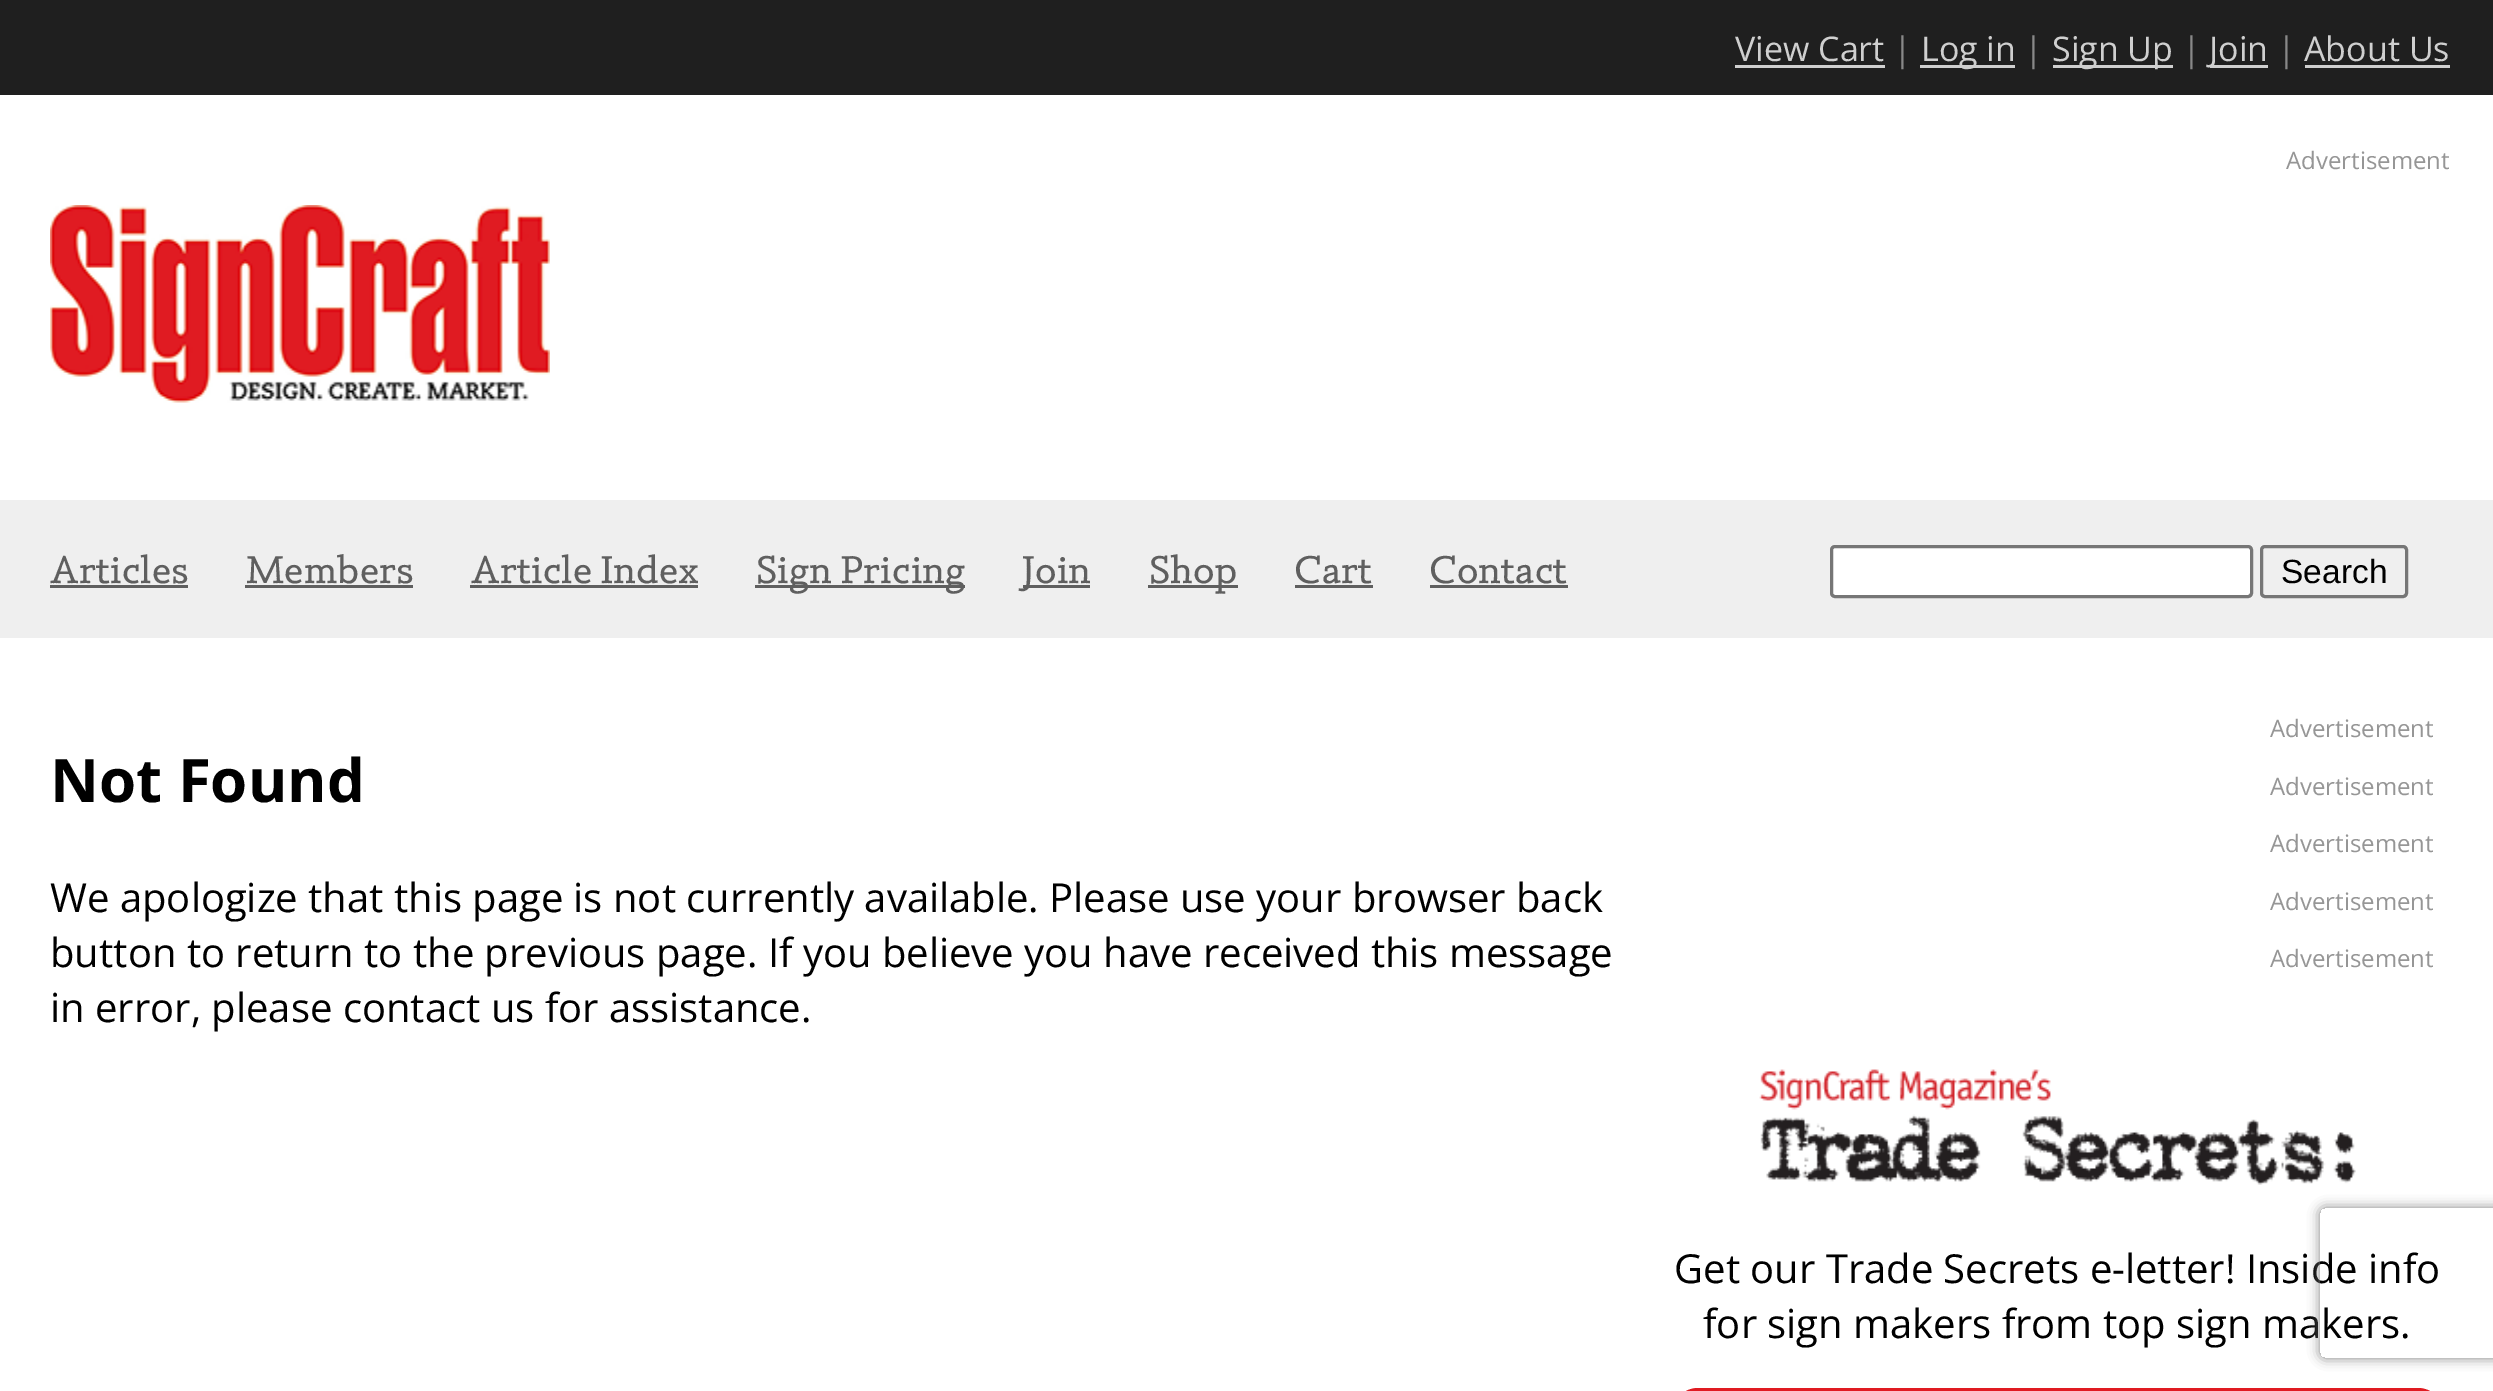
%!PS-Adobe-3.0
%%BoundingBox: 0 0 2493 1391
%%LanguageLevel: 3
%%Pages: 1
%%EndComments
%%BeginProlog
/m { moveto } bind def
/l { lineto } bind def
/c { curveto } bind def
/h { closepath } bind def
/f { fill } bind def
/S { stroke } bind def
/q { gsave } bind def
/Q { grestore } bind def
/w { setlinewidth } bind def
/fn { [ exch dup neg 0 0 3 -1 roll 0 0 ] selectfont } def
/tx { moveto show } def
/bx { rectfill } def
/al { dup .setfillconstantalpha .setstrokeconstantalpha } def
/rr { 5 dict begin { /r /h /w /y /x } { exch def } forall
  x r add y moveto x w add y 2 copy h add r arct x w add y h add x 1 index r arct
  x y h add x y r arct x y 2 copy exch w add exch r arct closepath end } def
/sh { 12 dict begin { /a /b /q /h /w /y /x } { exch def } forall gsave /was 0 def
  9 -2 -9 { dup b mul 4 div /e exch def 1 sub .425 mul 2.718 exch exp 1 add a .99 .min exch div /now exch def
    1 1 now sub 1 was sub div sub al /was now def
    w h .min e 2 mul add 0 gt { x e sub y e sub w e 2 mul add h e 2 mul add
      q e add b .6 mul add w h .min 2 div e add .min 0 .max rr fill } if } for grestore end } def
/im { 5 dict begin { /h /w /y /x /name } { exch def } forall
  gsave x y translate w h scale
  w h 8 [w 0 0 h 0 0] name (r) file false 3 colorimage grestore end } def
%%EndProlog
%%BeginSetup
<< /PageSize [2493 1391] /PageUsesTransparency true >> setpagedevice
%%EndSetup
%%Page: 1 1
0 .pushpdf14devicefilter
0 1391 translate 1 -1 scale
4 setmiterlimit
1 setgray
0 0 2493 1391 bx
0.122 setgray
0 0 2493 95 bx
/OpenSans-Regular 34 fn
0.812 setgray
(View Cart) 1735 61 tx
1735 65 150 3 bx
0.533 setgray
(|) 1893 61 tx
0.812 setgray
1920 65 95 3 bx
(Log in) 1921 61 tx
0.533 setgray
(|) 2024 61 tx
0.812 setgray
2053 65 120 3 bx
(Sign Up) 2052 61 tx
0.533 setgray
(|) 2182 61 tx
0.812 setgray
2210 65 58 3 bx
(Join) 2209 61 tx
0.533 setgray
(|) 2277 61 tx
0.812 setgray
(About Us) 2304 61 tx
2305 65 145 3 bx
/OpenSans-Regular 24 fn
0.588 setgray
(Advertisement) 2286 169 tx
(image0.raw) 50 205 500 198 im
0.937 setgray
0 500 2493 138 bx
/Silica-Regular 42.5 fn
0.373 setgray
(Articles) 50 583 tx
50 585 138 3 bx
(Members) 246 583 tx
245 585 168 3 bx
(Article Index) 471 583 tx
470 585 228 3 bx
755 585 210 3 bx
(Sign Pricing) 756 583 tx
1023 585 67 3 bx
(Join) 1022 583 tx
1148 585 90 3 bx
(Shop) 1149 583 tx
(Cart) 1294 583 tx
1295 585 78 3 bx
(Contact) 1429 583 tx
1430 585 138 3 bx
1 setgray
1831.5 546.5 420 50 3.5 rr q f Q
0.463 setgray
3 w
S
2261.5 546.5 145 50 3.5 rr S
/LiberationSans-Regular 33.5 fn
0 setgray
(Search) 2281 583 tx
/OpenSans-Bold 60 fn
(Not Found) 50 802 tx
/OpenSans-Regular 40 fn
(We apologize that this page is not currently available. Please use your browser back) 50 912 tx
(button to return to the previous page. If you believe you have received this message) 50 967 tx
(in error, please contact us for assistance.) 50 1022 tx
/OpenSans-Regular 24 fn
0.588 setgray
(Advertisement) 2270 737 tx
(Advertisement) 2270 795 tx
(Advertisement) 2270 852 tx
(Advertisement) 2270 910 tx
(Advertisement) 2270 967 tx
(image1.raw) 1759 1069 597 116 im
/OpenSans-Regular 40 fn
0 setgray
(Get our Trade Secrets e-letter! Inside info) 1674 1283 tx
(for sign makers from top sign makers.) 1703 1338 tx
0.878 0.106 0.133 setrgbcolor
1673 1388 770 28 25 rr f
q
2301 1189 m 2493 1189 l 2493 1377 l 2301 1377 l h 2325 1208 m 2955 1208 l 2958 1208 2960 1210 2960 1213 c 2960 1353 l 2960 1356 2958 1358 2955 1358 c 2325 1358 l 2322 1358 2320 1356 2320 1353 c 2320 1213 l 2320 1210 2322 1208 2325 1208 c h eoclip newpath
0.502 setgray
2320 1208 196 150 5 6 1 sh
Q
.poppdf14devicefilter showpage
%%EOF
